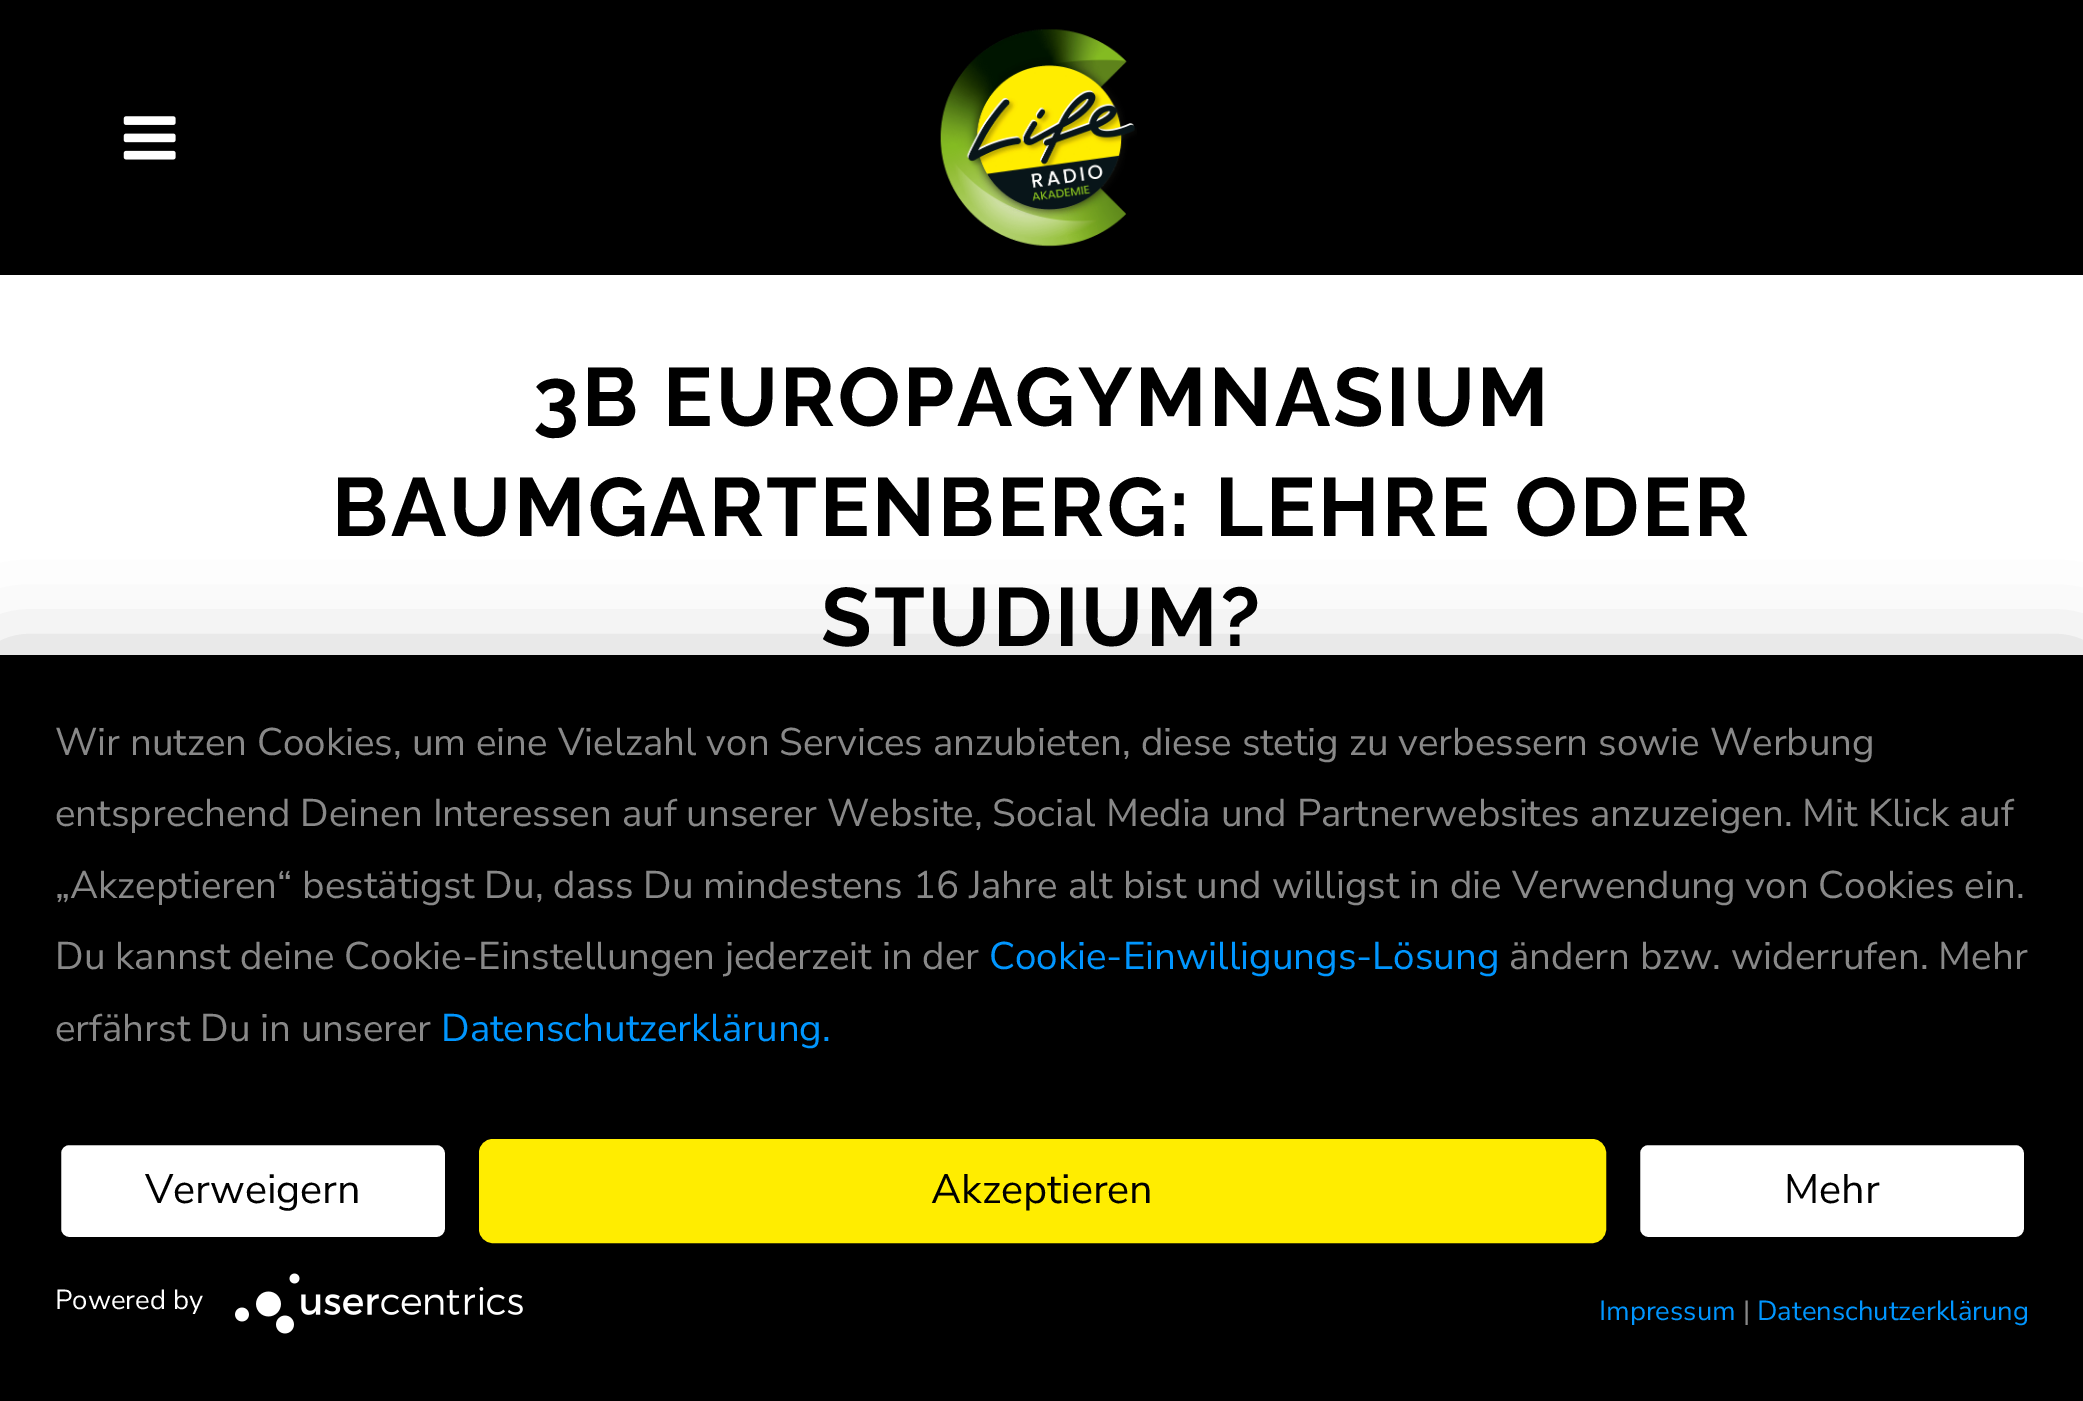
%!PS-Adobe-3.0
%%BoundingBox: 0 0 2083 1401
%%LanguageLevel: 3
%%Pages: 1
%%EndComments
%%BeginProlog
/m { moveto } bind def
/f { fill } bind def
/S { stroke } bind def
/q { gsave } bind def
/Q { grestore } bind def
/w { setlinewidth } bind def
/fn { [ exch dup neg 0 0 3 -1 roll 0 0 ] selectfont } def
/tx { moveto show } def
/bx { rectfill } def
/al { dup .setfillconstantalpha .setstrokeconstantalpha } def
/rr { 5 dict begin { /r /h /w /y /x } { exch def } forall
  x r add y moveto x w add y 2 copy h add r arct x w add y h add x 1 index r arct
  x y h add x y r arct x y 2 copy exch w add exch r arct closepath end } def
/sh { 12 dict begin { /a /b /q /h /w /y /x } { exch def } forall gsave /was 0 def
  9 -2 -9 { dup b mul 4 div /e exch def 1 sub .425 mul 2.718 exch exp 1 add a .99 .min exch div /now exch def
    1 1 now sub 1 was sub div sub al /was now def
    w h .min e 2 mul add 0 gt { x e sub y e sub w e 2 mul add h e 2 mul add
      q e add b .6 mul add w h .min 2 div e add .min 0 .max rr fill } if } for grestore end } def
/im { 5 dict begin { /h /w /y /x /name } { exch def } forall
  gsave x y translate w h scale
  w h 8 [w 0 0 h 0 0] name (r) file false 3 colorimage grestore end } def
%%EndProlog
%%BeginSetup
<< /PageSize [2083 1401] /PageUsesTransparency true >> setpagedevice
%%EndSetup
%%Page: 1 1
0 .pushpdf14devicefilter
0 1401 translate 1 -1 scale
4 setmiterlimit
1 setgray
0 0 2083 1401 bx
0 setgray
0 0 2083 275 bx
(image0.raw) 123 116 53 44 im
(image1.raw) 940 29 197 218 im
/Raleway-Bold 82.5 fn
533 426 m 2.75 0 (3B EUROPAGYMNASIUM) ashow
332 536 m 2.75 0 (BAUMGARTENBERG: LEHRE ODER) ashow
821 646 m 2.75 0 (STUDIUM?) ashow
0 671 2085 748 0 49.5 0.3 sh
0 655 2083 746 bx
/NunitoSans-Regular 38.5 fn
0.533 setgray
(Wir nutzen Cookies, um eine Vielzahl von Services anzubieten, diese stetig zu verbessern sowie Werbung) 55 755 tx
(entsprechend Deinen Interessen auf unserer Website, Social Media und Partnerwebsites anzuzeigen. Mit Klick auf) 55 826 tx
(„Akzeptieren“ bestätigst Du, dass Du mindestens 16 Jahre alt bist und willigst in die Verwendung von Cookies ein.) 55 898 tx
(Du kannst deine Cookie-Einstellungen jederzeit in der) 55 969 tx
0 0.588 1 setrgbcolor
(Cookie-Einwilligungs-Lösung) 989 969 tx
0.533 setgray
(ändern bzw. widerrufen. Mehr) 1509 969 tx
(erfährst Du in unserer) 55 1041 tx
0 0.588 1 setrgbcolor
(Datenschutzerklärung.) 441 1041 tx
1 setgray
58 1142 390 98 11 rr q f Q
0 setgray
6 w
S
/NunitoSans-Regular 41.25 fn
(Verweigern) 145 1203 tx
1 0.929 0 setrgbcolor
482 1142 1121 98 11 rr q f Q
S
0 setgray
(Akzeptieren) 931 1203 tx
1 setgray
1637 1142 390 98 11 rr q f Q
0 setgray
S
(Mehr) 1784 1203 tx
/NunitoSans-Regular 27.5 fn
1 setgray
(Powered by) 55 1309 tx
(image2.raw) 235 1273 288 61 im
0 0.588 1 setrgbcolor
(Impressum) 1599 1320 tx
0.533 setgray
(|) 1743 1320 tx
0 0.588 1 setrgbcolor
(Datenschutzerklärung) 1757 1320 tx
.poppdf14devicefilter showpage
%%EOF
